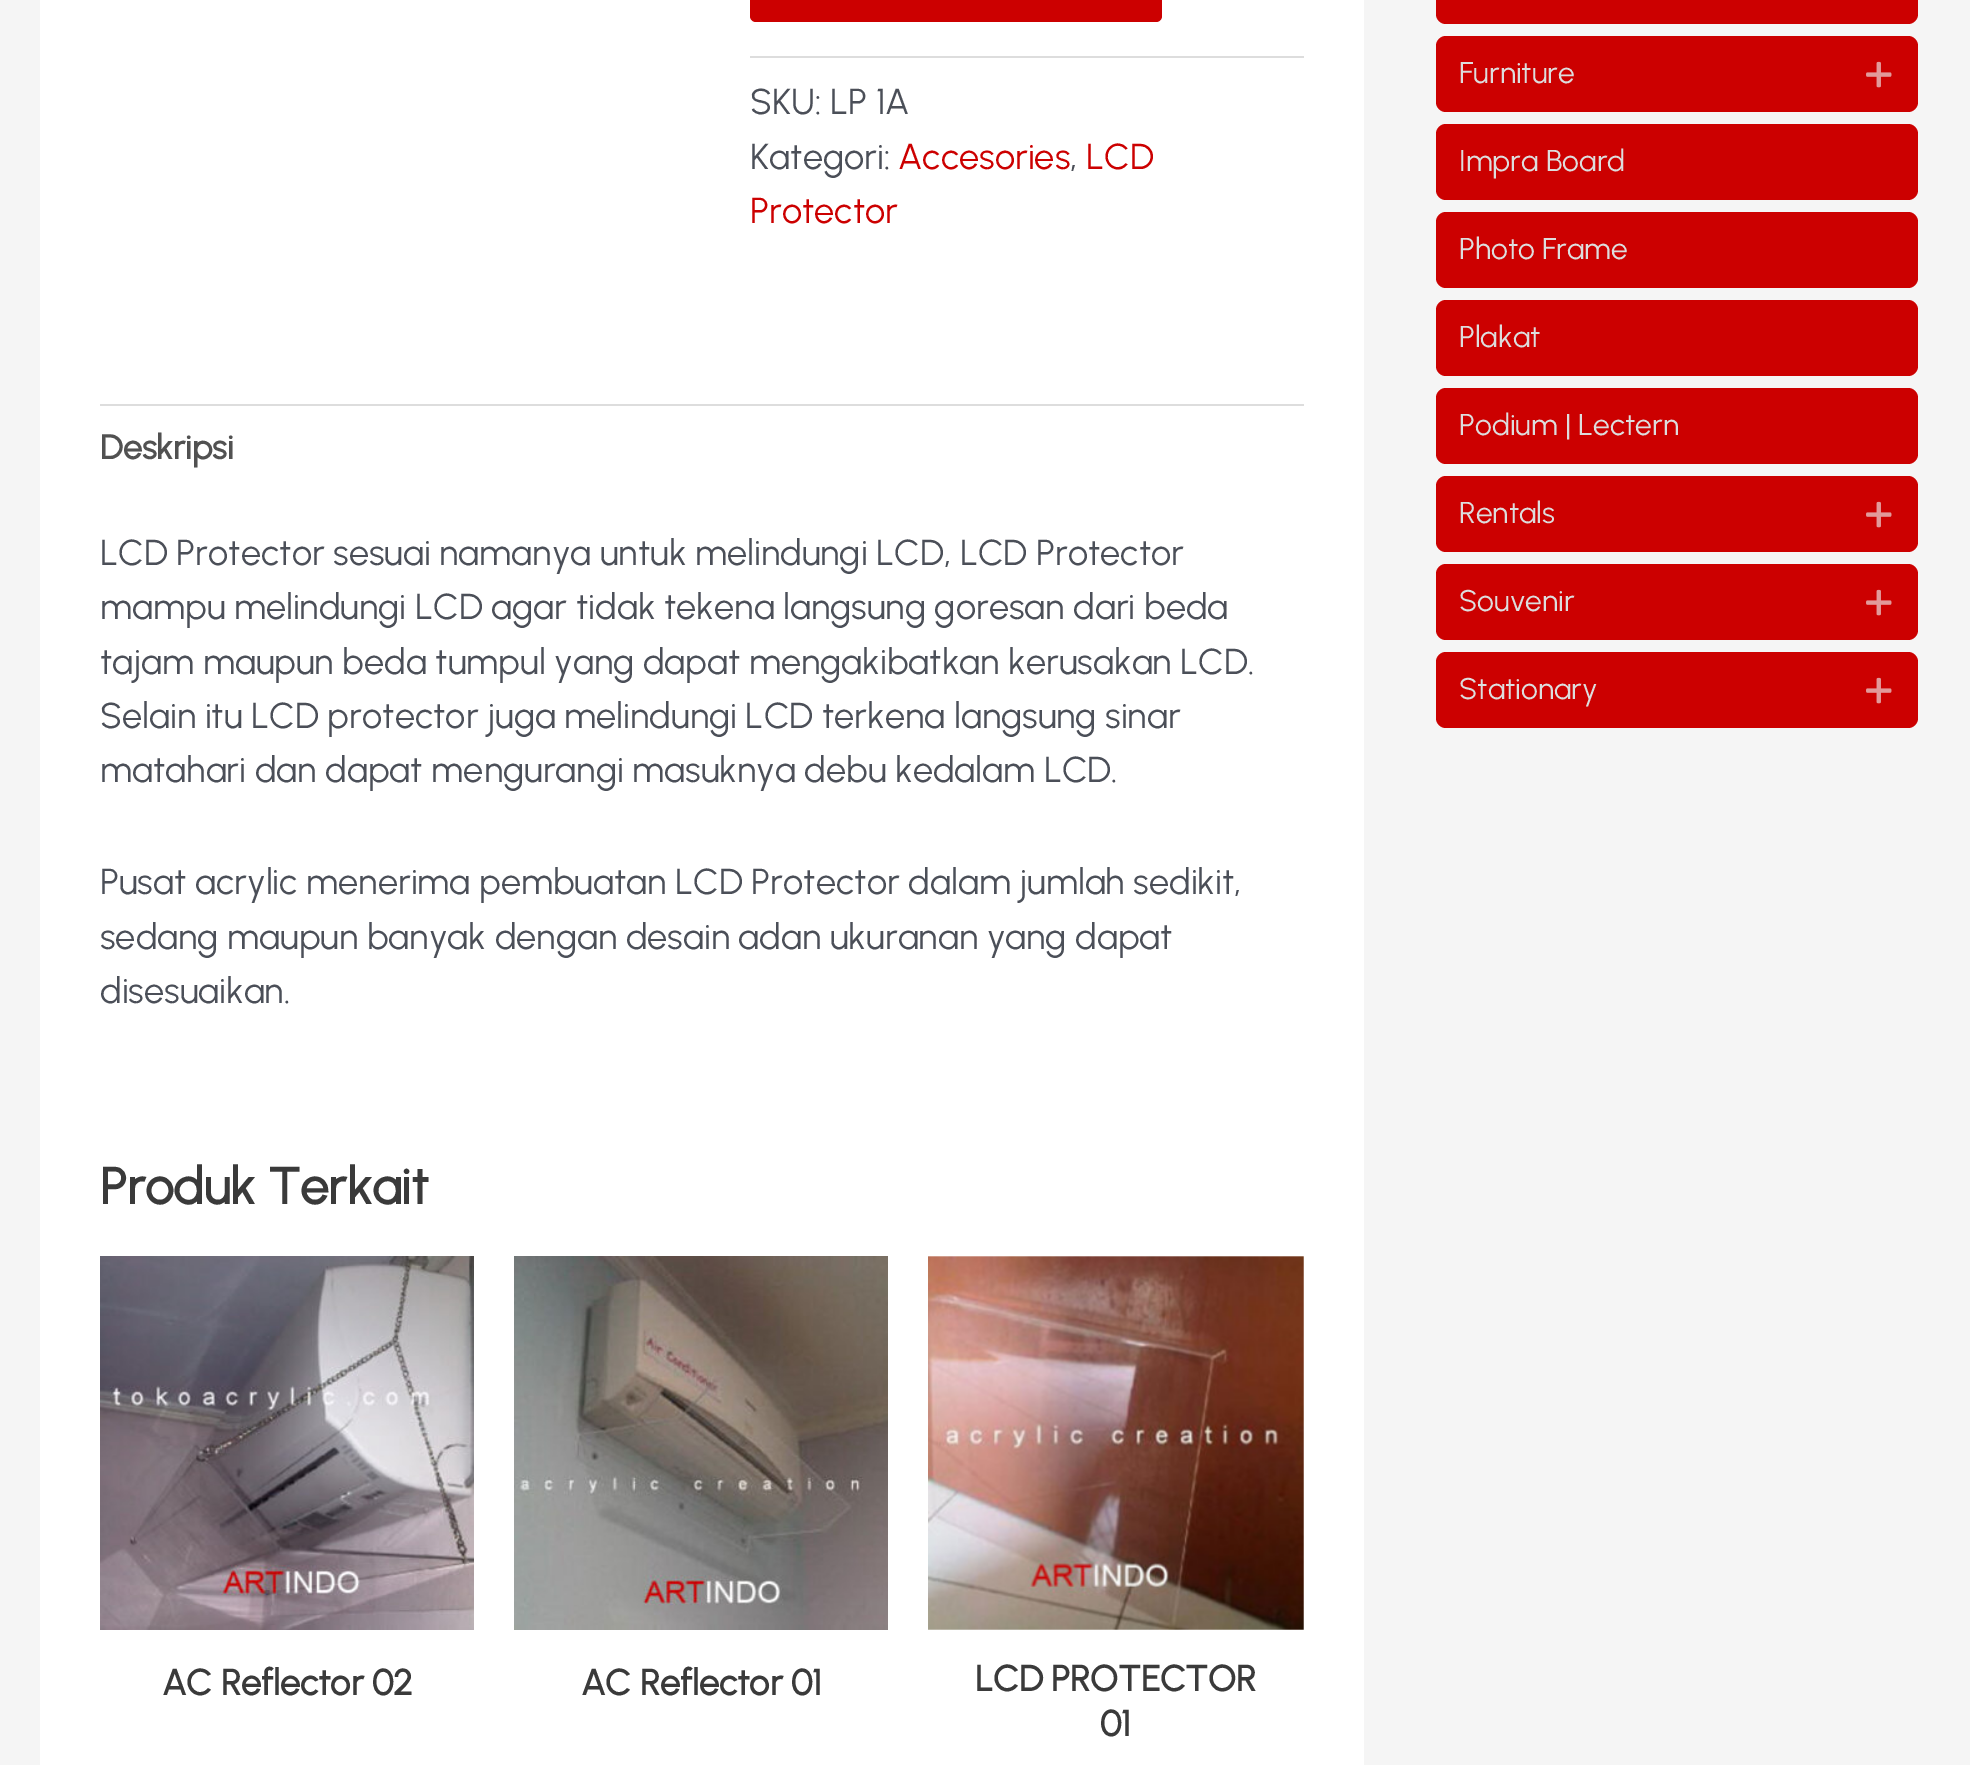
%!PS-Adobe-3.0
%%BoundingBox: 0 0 1970 1765
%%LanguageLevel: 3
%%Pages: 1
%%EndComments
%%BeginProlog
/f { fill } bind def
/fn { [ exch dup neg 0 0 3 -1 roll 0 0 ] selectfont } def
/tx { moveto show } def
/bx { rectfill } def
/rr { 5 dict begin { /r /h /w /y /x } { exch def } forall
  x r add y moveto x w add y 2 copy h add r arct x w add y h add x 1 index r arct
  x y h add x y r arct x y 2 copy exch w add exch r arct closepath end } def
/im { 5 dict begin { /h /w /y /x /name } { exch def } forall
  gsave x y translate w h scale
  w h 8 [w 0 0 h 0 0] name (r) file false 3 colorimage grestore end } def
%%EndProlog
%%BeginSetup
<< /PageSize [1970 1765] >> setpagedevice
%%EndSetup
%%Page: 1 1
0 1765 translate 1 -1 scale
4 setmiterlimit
0.961 setgray
0 0 1970 1765 bx
1 setgray
40 0 1324 1765 bx
0.8 0 0 setrgbcolor
750 -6 412 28 6 rr f
0.867 setgray
750 56 554 2 bx
/Urbanist-Regular 36 fn
0.294 0.31 0.345 setrgbcolor
(SKU: LP 1A) 750 114 tx
(Kategori:) 750 169 tx
0.8 0 0 setrgbcolor
(Accesories) 898 169 tx
0.294 0.31 0.345 setrgbcolor
(,) 1070 169 tx
0.8 0 0 setrgbcolor
(LCD) 1086 169 tx
(Protector) 750 223 tx
0.867 setgray
100 404 1204 2 bx
/Urbanist-Bold 34 fn
0.318 setgray
(Deskripsi) 100 459 tx
/Urbanist-Regular 36 fn
0.294 0.31 0.345 setrgbcolor
(LCD Protector sesuai namanya untuk melindungi LCD, LCD Protector) 100 565 tx
(mampu melindungi LCD agar tidak tekena langsung goresan dari beda) 100 619 tx
(tajam maupun beda tumpul yang dapat mengakibatkan kerusakan LCD.) 100 674 tx
(Selain itu LCD protector juga melindungi LCD terkena langsung sinar) 100 728 tx
(matahari dan dapat mengurangi masuknya debu kedalam LCD.) 100 782 tx
(Pusat acrylic menerima pembuatan LCD Protector dalam jumlah sedikit,) 100 894 tx
(sedang maupun banyak dengan desain adan ukuranan yang dapat) 100 949 tx
(disesuaikan.) 100 1003 tx
/Urbanist-Bold 51 fn
0.227 setgray
(Produk Terkait) 100 1204 tx
(image0.raw) 100 1256 374 374 im
/Urbanist-Bold 36 fn
(AC Reflector 02) 162 1695 tx
(image1.raw) 514 1256 374 374 im
(AC Reflector 01) 581 1695 tx
(image2.raw) 928 1256 376 374 im
(LCD PROTECTOR) 975 1691 tx
(01) 1100 1736 tx
0.8 0 0 setrgbcolor
1436 -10 482 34 10 rr f
1436 36 482 76 10 rr f
/Urbanist-Regular 30 fn
0.867 setgray
(Furniture) 1459 83 tx
(image3.raw) 1866 61 26 27 im
0.8 0 0 setrgbcolor
1436 124 482 76 10 rr f
0.867 setgray
(Impra Board) 1459 171 tx
0.8 0 0 setrgbcolor
1436 212 482 76 10 rr f
0.867 setgray
(Photo Frame) 1459 259 tx
0.8 0 0 setrgbcolor
1436 300 482 76 10 rr f
0.867 setgray
(Plakat) 1459 347 tx
0.8 0 0 setrgbcolor
1436 388 482 76 10 rr f
0.867 setgray
(Podium | Lectern) 1459 435 tx
0.8 0 0 setrgbcolor
1436 476 482 76 10 rr f
0.867 setgray
(Rentals) 1459 523 tx
(image3.raw) 1866 501 26 27 im
0.8 0 0 setrgbcolor
1436 564 482 76 10 rr f
0.867 setgray
(Souvenir) 1459 611 tx
(image3.raw) 1866 589 26 27 im
0.8 0 0 setrgbcolor
1436 652 482 76 10 rr f
0.867 setgray
(Stationary) 1459 699 tx
(image3.raw) 1866 677 26 27 im
showpage
%%EOF
